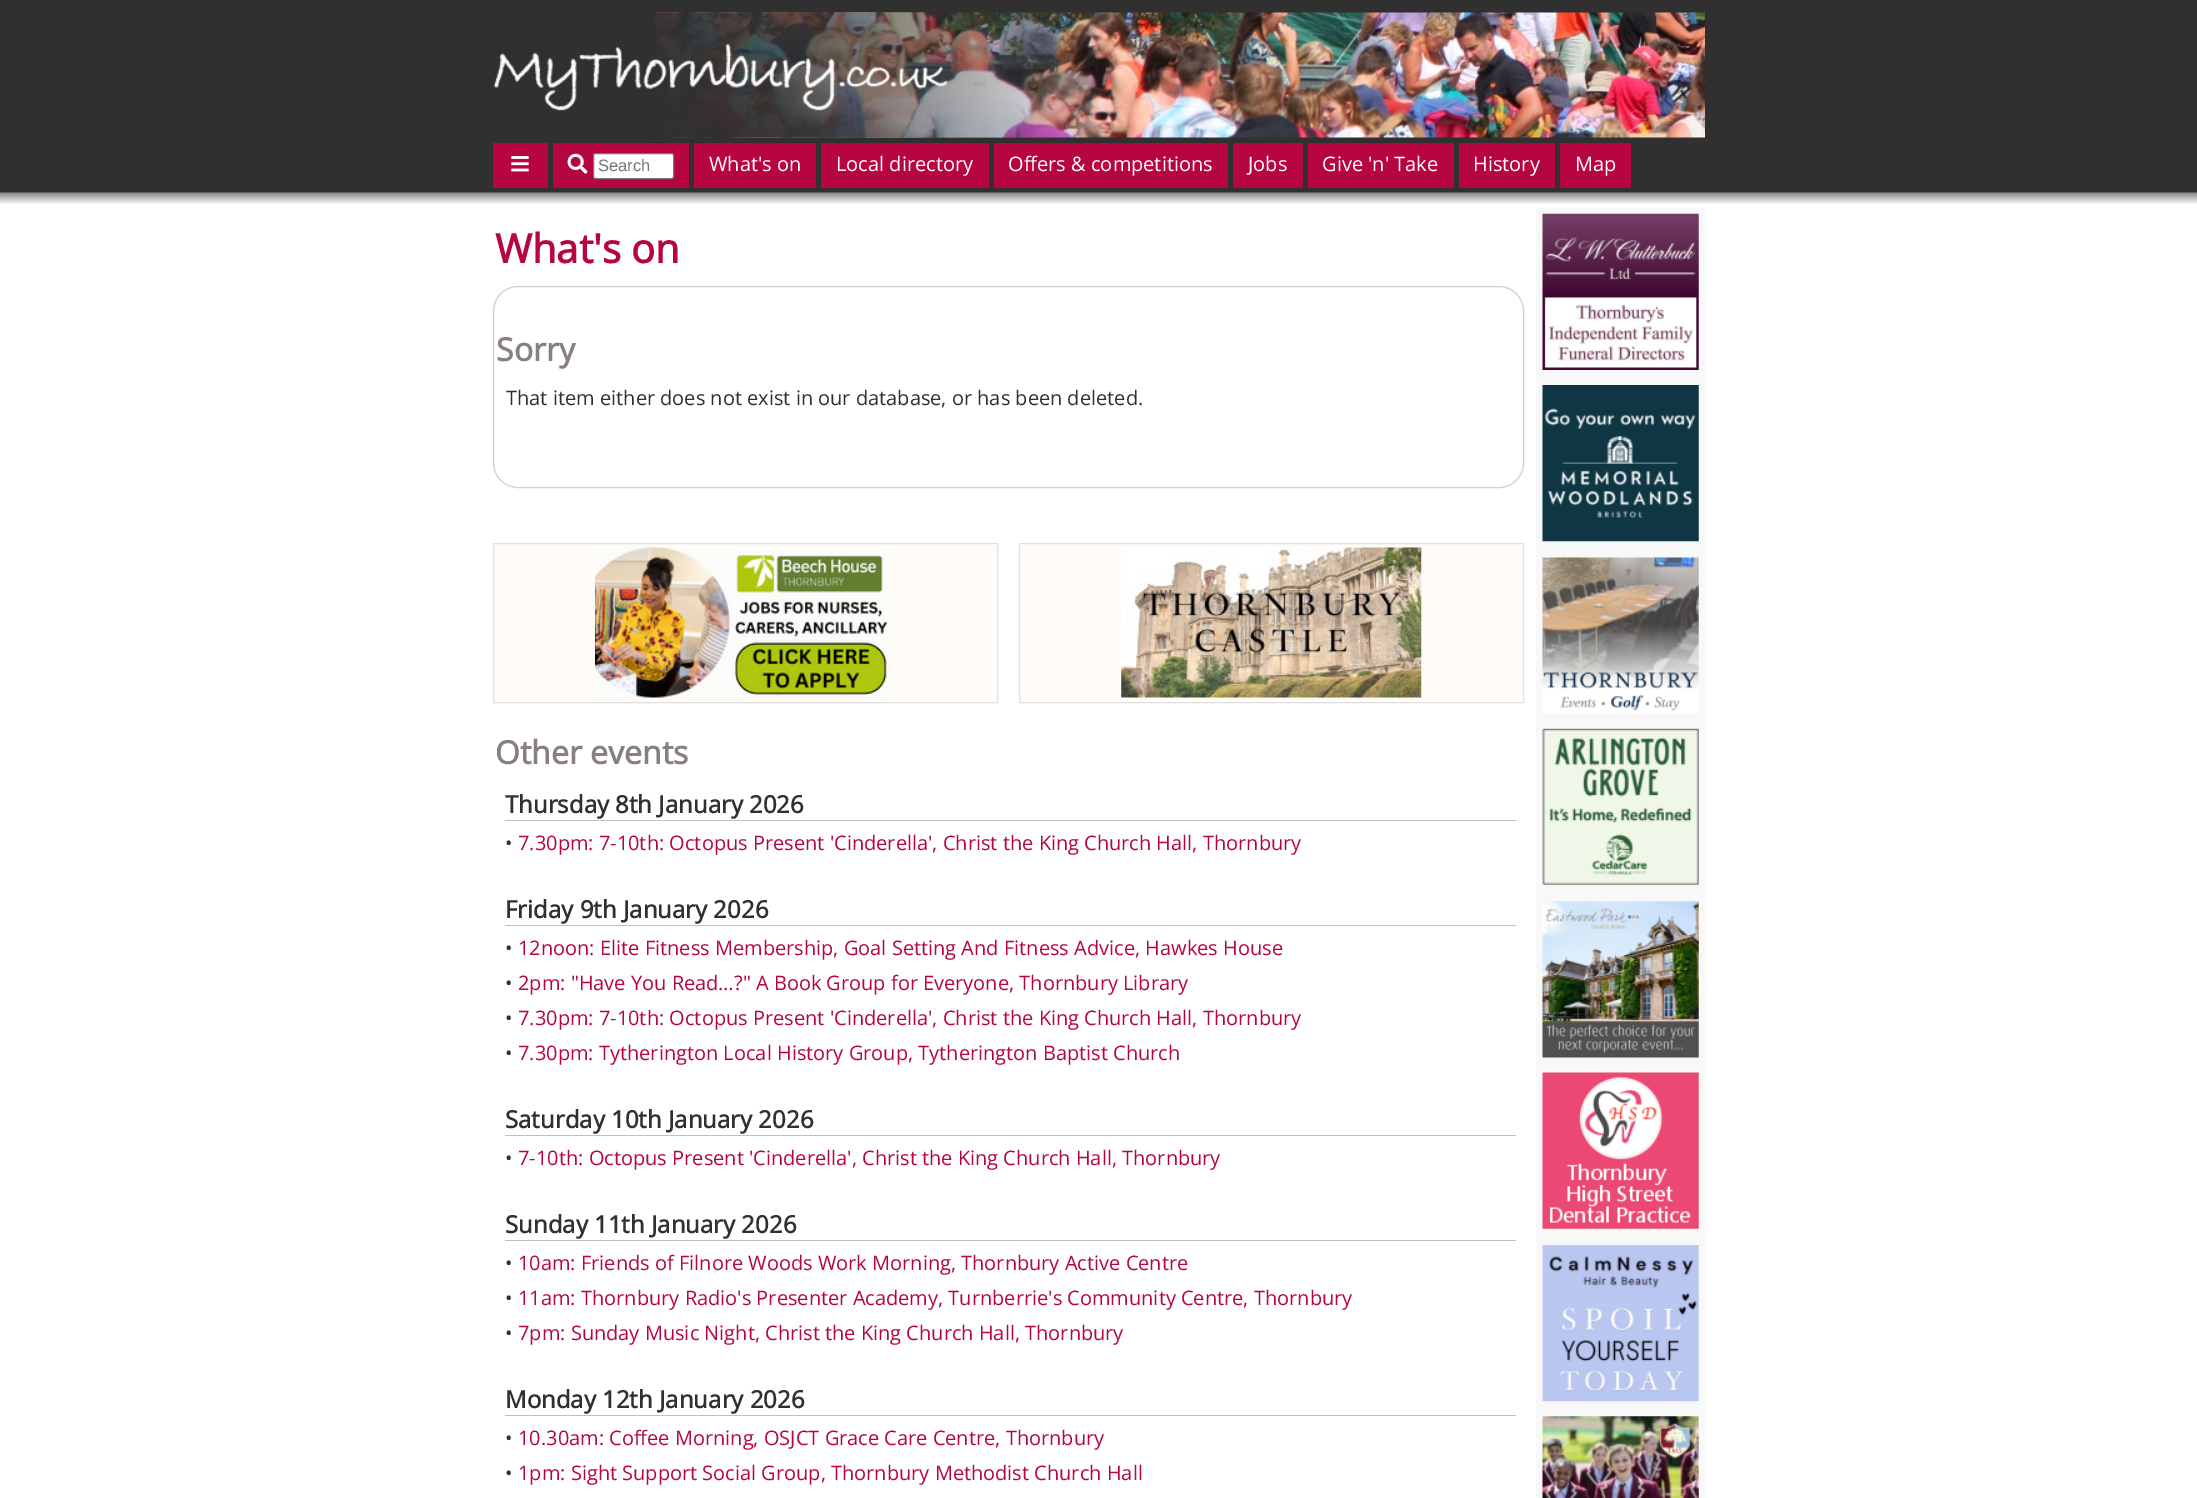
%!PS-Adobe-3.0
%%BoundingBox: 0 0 2197 1498
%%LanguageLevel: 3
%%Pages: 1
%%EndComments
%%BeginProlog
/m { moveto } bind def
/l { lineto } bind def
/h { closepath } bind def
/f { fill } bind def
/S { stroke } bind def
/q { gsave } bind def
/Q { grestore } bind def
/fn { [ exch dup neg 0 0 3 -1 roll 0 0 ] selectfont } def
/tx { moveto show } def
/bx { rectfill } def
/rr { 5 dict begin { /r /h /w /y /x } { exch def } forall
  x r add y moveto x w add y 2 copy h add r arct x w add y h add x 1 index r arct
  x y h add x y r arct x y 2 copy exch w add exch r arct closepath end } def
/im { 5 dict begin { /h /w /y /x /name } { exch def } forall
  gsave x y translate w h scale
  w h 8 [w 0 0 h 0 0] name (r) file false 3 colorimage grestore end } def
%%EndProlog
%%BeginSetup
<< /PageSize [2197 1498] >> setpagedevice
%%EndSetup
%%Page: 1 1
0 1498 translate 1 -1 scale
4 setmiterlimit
0.188 setgray
0 0 2197 1498 bx
(image0.raw) 655 12 1050 126 im
(image1.raw) 655 12 453 126 im
(image2.raw) 493 43 455 68 im
0.718 0.02 0.267 setrgbcolor
493 143 55 45 bx
(image3.raw) 511 156 18 16 im
553 143 136 45 bx
(image4.raw) 567 153 21 21 im
1 setgray
593.5 153.5 80 25 2 rr q f Q
0.463 setgray
S
/LiberationSans-Regular 16.5 fn
0.459 setgray
(Search) 598 171 tx
0.718 0.02 0.267 setrgbcolor
694 143 122 45 bx
/OpenSans-Regular 20 fn
1 setgray
(What's on) 709 171 tx
0.718 0.02 0.267 setrgbcolor
821 143 168 45 bx
1 setgray
(Local directory) 836 171 tx
0.718 0.02 0.267 setrgbcolor
994 143 234 45 bx
1 setgray
(Offers & competitions) 1008 171 tx
0.718 0.02 0.267 setrgbcolor
1233 143 70 45 bx
1 setgray
(Jobs) 1248 171 tx
0.718 0.02 0.267 setrgbcolor
1308 143 146 45 bx
1 setgray
(Give 'n' Take) 1322 171 tx
0.718 0.02 0.267 setrgbcolor
1459 143 96 45 bx
1 setgray
(History) 1473 171 tx
0.718 0.02 0.267 setrgbcolor
1560 143 71 45 bx
1 setgray
(Map) 1575 171 tx
0 204 2197 1294 bx
(image5.raw) 0 192 2197 12 im
/OpenSans-Bold 40 fn
0.718 0.02 0.267 setrgbcolor
(What's on) 495 263 tx
0.816 setgray
493.5 286.5 1030 201 24.5 rr S
/OpenSans-Bold 32 fn
0.533 0.502 0.502 setrgbcolor
(Sorry) 496 361 tx
/OpenSans-Regular 20 fn
0.188 setgray
(That item either does not exist in our database, or has been deleted.) 506 405 tx
1 0.984 0.969 setrgbcolor
493.5 543.5 m 997.5 543.5 l 997.5 702.5 l 493.5 702.5 l h q f Q
0.878 setgray
S
(image6.raw) 595 547 295 151 im
1 0.984 0.969 setrgbcolor
1019.5 543.5 m 1523.5 543.5 l 1523.5 702.5 l 1019.5 702.5 l h q f Q
0.878 setgray
S
(image7.raw) 1121 547 301 151 im
/OpenSans-Bold 32 fn
0.533 0.502 0.502 setrgbcolor
(Other events) 495 764 tx
0.753 setgray
505 820 1011 1 bx
/OpenSans-Bold 24 fn
0.188 setgray
(Thursday 8th January 2026) 505 813 tx
/OpenSans-Regular 20 fn
(•) 505 850 tx
0.718 0.02 0.267 setrgbcolor
(7.30pm: 7-10th: Octopus Present 'Cinderella', Christ the King Church Hall, Thornbury) 518 850 tx
0.753 setgray
505 925 1011 1 bx
/OpenSans-Bold 24 fn
0.188 setgray
(Friday 9th January 2026) 505 918 tx
/OpenSans-Regular 20 fn
(•) 505 955 tx
0.718 0.02 0.267 setrgbcolor
(12noon: Elite Fitness Membership, Goal Setting And Fitness Advice, Hawkes House) 518 955 tx
0.188 setgray
(•) 505 990 tx
0.718 0.02 0.267 setrgbcolor
(2pm: "Have You Read…?" A Book Group for Everyone, Thornbury Library) 518 990 tx
0.188 setgray
(•) 505 1025 tx
0.718 0.02 0.267 setrgbcolor
(7.30pm: 7-10th: Octopus Present 'Cinderella', Christ the King Church Hall, Thornbury) 518 1025 tx
0.188 setgray
(•) 505 1060 tx
0.718 0.02 0.267 setrgbcolor
(7.30pm: Tytherington Local History Group, Tytherington Baptist Church) 518 1060 tx
0.753 setgray
505 1135 1011 1 bx
/OpenSans-Bold 24 fn
0.188 setgray
(Saturday 10th January 2026) 505 1128 tx
/OpenSans-Regular 20 fn
(•) 505 1165 tx
0.718 0.02 0.267 setrgbcolor
(7-10th: Octopus Present 'Cinderella', Christ the King Church Hall, Thornbury) 518 1165 tx
0.753 setgray
505 1240 1011 1 bx
/OpenSans-Bold 24 fn
0.188 setgray
(Sunday 11th January 2026) 505 1233 tx
/OpenSans-Regular 20 fn
(•) 505 1270 tx
0.718 0.02 0.267 setrgbcolor
(10am: Friends of Filnore Woods Work Morning, Thornbury Active Centre) 518 1270 tx
0.188 setgray
(•) 505 1305 tx
0.718 0.02 0.267 setrgbcolor
(11am: Thornbury Radio's Presenter Academy, Turnberrie's Community Centre, Thornbury) 518 1305 tx
0.188 setgray
(•) 505 1340 tx
0.718 0.02 0.267 setrgbcolor
(7pm: Sunday Music Night, Christ the King Church Hall, Thornbury) 518 1340 tx
0.753 setgray
505 1415 1011 1 bx
/OpenSans-Bold 24 fn
0.188 setgray
(Monday 12th January 2026) 505 1408 tx
/OpenSans-Regular 20 fn
(•) 505 1445 tx
0.718 0.02 0.267 setrgbcolor
(10.30am: Coffee Morning, OSJCT Grace Care Centre, Thornbury) 518 1445 tx
0.188 setgray
(•) 505 1480 tx
0.718 0.02 0.267 setrgbcolor
(1pm: Sight Support Social Group, Thornbury Methodist Church Hall) 518 1480 tx
0.973 setgray
1536 208 169 1290 bx
(image8.raw) 1542 213 157 157 im
(image9.raw) 1542 385 157 157 im
(image10.raw) 1542 557 157 157 im
(image11.raw) 1542 728 157 157 im
(image12.raw) 1542 901 157 157 im
(image13.raw) 1542 1072 157 157 im
(image14.raw) 1542 1245 157 157 im
(image15.raw) 1542 1416 157 82 im
showpage
%%EOF
